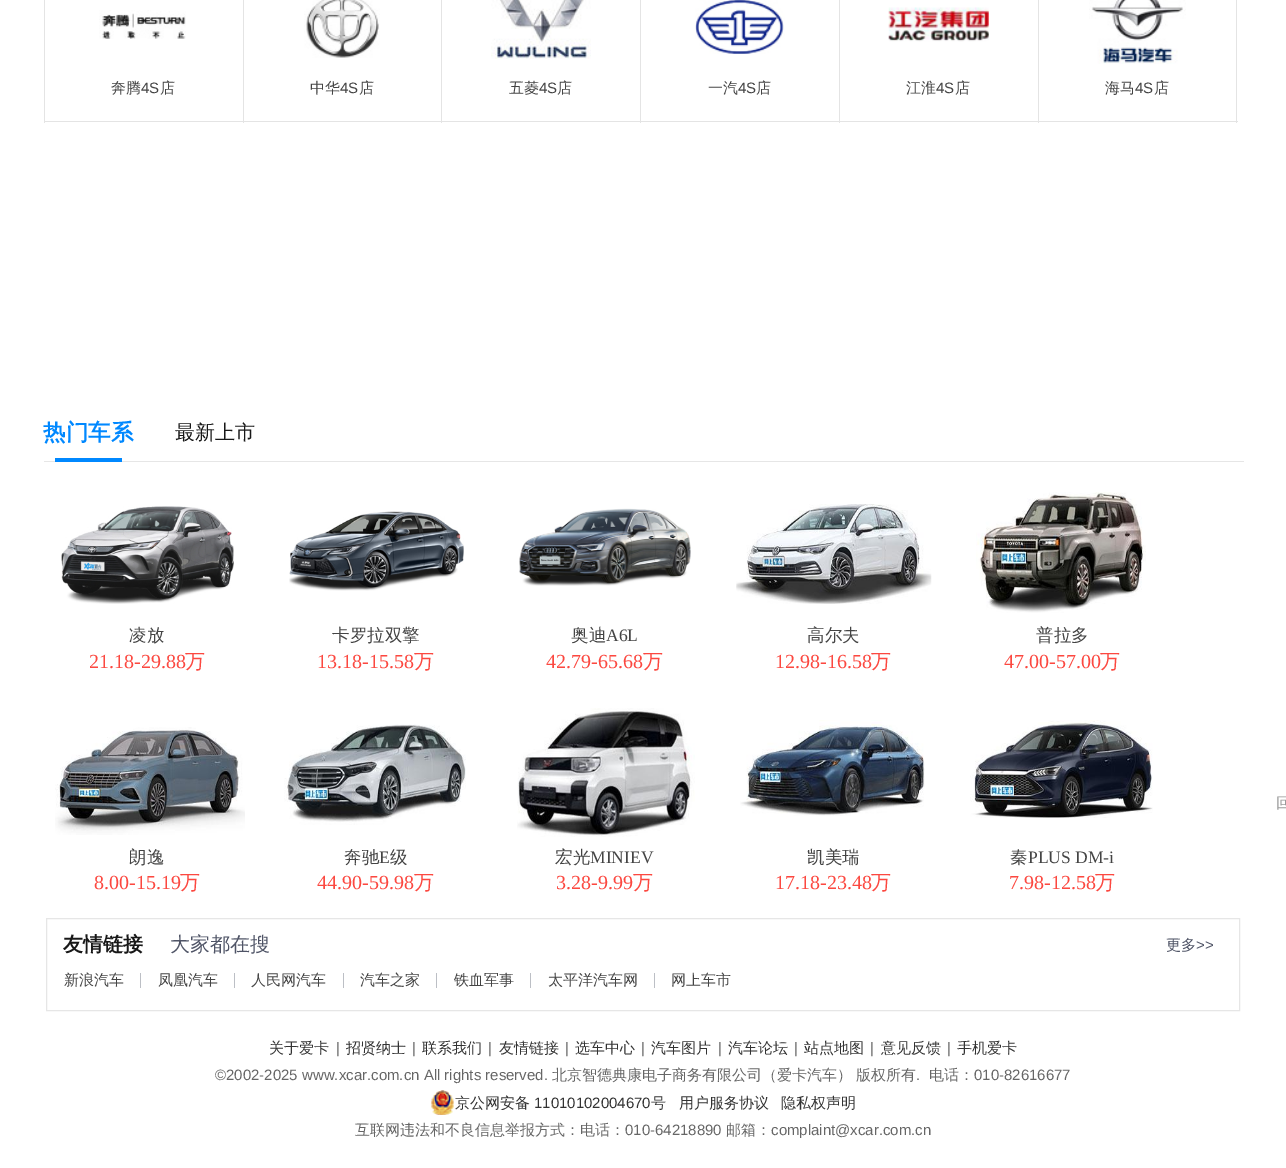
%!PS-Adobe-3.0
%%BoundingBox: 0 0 1286 1168
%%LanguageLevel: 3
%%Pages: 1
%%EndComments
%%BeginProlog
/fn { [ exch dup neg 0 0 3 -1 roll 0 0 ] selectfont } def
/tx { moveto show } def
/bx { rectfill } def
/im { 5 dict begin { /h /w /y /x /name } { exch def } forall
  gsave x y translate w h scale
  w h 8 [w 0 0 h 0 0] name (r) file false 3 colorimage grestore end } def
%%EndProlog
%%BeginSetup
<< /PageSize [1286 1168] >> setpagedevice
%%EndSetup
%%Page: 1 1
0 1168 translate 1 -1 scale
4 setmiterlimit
1 setgray
0 0 1286 1168 bx
0.894 setgray
44 0 1 123 bx
243 0 1 123 bx
45 121 199 1 bx
(image0.raw) 99 10 87 29 im
/WenQuanYiZenHei-Medium 15 fn
0.267 setgray
(奔腾) 111 93 tx
/LiberationSans-Regular 15 fn
(4S) 141 93 tx
/WenQuanYiZenHei-Medium 15 fn
(店) 160 93 tx
0.894 setgray
441 0 1 123 bx
244 121 199 1 bx
(image1.raw) 304 0 76 58 im
0.267 setgray
(中华) 310 93 tx
/LiberationSans-Regular 15 fn
(4S) 340 93 tx
/WenQuanYiZenHei-Medium 15 fn
(店) 359 93 tx
0.894 setgray
640 0 1 123 bx
443 121 198 1 bx
(image2.raw) 491 0 100 59 im
0.267 setgray
(五菱) 509 93 tx
/LiberationSans-Regular 15 fn
(4S) 539 93 tx
/WenQuanYiZenHei-Medium 15 fn
(店) 557 93 tx
0.894 setgray
839 0 1 123 bx
641 121 199 1 bx
(image3.raw) 695 0 90 54 im
0.267 setgray
(一汽) 708 93 tx
/LiberationSans-Regular 15 fn
(4S) 738 93 tx
/WenQuanYiZenHei-Medium 15 fn
(店) 756 93 tx
0.894 setgray
1038 0 1 123 bx
840 121 199 1 bx
(image4.raw) 888 7 101 35 im
0.267 setgray
(江淮) 906 93 tx
/LiberationSans-Regular 15 fn
(4S) 936 93 tx
/WenQuanYiZenHei-Medium 15 fn
(店) 955 93 tx
0.894 setgray
1236 0 1 123 bx
1039 121 199 1 bx
(image5.raw) 1089 0 97 64 im
0.267 setgray
(海马) 1105 93 tx
/LiberationSans-Regular 15 fn
(4S) 1135 93 tx
/WenQuanYiZenHei-Medium 15 fn
(店) 1154 93 tx
0.902 setgray
44 461 1200 1 bx
0 0.533 1 setrgbcolor
55 458 67 4 bx
/WenQuanYiZenHei-Bold 22.5 fn
(热门车系) 43 440 tx
/WenQuanYiZenHei-Medium 20 fn
0.094 setgray
(最新上市) 175 439 tx
(image6.raw) 61 506 173 98 im
/WenQuanYiZenHei-Medium 17.5 fn
0.267 setgray
(凌放) 129 641 tx
/LiberationSerif-Regular 20 fn
0.988 0.282 0.251 setrgbcolor
(21.18-29.88) 89 668 tx
/WenQuanYiZenHei-Medium 20 fn
(万) 185 668 tx
(image7.raw) 289 511 175 80 im
/WenQuanYiZenHei-Medium 17.5 fn
0.267 setgray
(卡罗拉双擎) 332 641 tx
/LiberationSerif-Regular 20 fn
0.988 0.282 0.251 setrgbcolor
(13.18-15.58) 317 668 tx
/WenQuanYiZenHei-Medium 20 fn
(万) 414 668 tx
(image8.raw) 519 508 172 78 im
/WenQuanYiZenHei-Medium 17.5 fn
0.267 setgray
(奥迪) 571 641 tx
/LiberationSerif-Regular 17.5 fn
(A6L) 606 641 tx
/LiberationSerif-Regular 20 fn
0.988 0.282 0.251 setrgbcolor
(42.79-65.68) 546 668 tx
/WenQuanYiZenHei-Medium 20 fn
(万) 643 668 tx
(image9.raw) 736 504 196 100 im
/WenQuanYiZenHei-Medium 17.5 fn
0.267 setgray
(高尔夫) 807 641 tx
/LiberationSerif-Regular 20 fn
0.988 0.282 0.251 setrgbcolor
(12.98-16.58) 775 668 tx
/WenQuanYiZenHei-Medium 20 fn
(万) 871 668 tx
(image10.raw) 976 492 170 121 im
/WenQuanYiZenHei-Medium 17.5 fn
0.267 setgray
(普拉多) 1036 641 tx
/LiberationSerif-Regular 20 fn
0.988 0.282 0.251 setrgbcolor
(47.00-57.00) 1004 668 tx
/WenQuanYiZenHei-Medium 20 fn
(万) 1100 668 tx
(image11.raw) 55 727 190 108 im
/WenQuanYiZenHei-Medium 17.5 fn
0.267 setgray
(朗逸) 129 863 tx
/LiberationSerif-Regular 20 fn
0.988 0.282 0.251 setrgbcolor
(8.00-15.19) 94 889 tx
/WenQuanYiZenHei-Medium 20 fn
(万) 180 889 tx
(image12.raw) 284 724 182 101 im
/WenQuanYiZenHei-Medium 17.5 fn
0.267 setgray
(奔驰) 344 863 tx
/LiberationSerif-Regular 17.5 fn
(E) 379 863 tx
/WenQuanYiZenHei-Medium 17.5 fn
(级) 390 863 tx
/LiberationSerif-Regular 20 fn
0.988 0.282 0.251 setrgbcolor
(44.90-59.98) 317 889 tx
/WenQuanYiZenHei-Medium 20 fn
(万) 414 889 tx
(image13.raw) 517 708 178 129 im
/WenQuanYiZenHei-Medium 17.5 fn
0.267 setgray
(宏光) 555 863 tx
/LiberationSerif-Regular 17.5 fn
(MINIEV) 590 863 tx
/LiberationSerif-Regular 20 fn
0.988 0.282 0.251 setrgbcolor
(3.28-9.99) 556 889 tx
/WenQuanYiZenHei-Medium 20 fn
(万) 633 889 tx
(image14.raw) 740 720 185 96 im
/WenQuanYiZenHei-Medium 17.5 fn
0.267 setgray
(凯美瑞) 807 863 tx
/LiberationSerif-Regular 20 fn
0.988 0.282 0.251 setrgbcolor
(17.18-23.48) 775 889 tx
/WenQuanYiZenHei-Medium 20 fn
(万) 871 889 tx
(image15.raw) 970 720 183 98 im
/WenQuanYiZenHei-Medium 17.5 fn
0.267 setgray
(秦) 1010 863 tx
/LiberationSerif-Regular 17.5 fn
(PLUS DM-i) 1028 863 tx
/LiberationSerif-Regular 20 fn
0.988 0.282 0.251 setrgbcolor
(7.98-12.58) 1009 889 tx
/WenQuanYiZenHei-Medium 20 fn
(万) 1095 889 tx
/WenQuanYiZenHei-Medium 15 fn
0.6 setgray
(回) 1276 808 tx
0.902 setgray
46.5 918.5 1193 92 rectstroke
/WenQuanYiZenHei-Bold 20 fn
0.094 setgray
(友情链接) 63 951 tx
/WenQuanYiZenHei-Medium 20 fn
0.31 0.329 0.4 setrgbcolor
(大家都在搜) 170 951 tx
/WenQuanYiZenHei-Medium 15 fn
(更多) 1166 950 tx
/LiberationSans-Regular 15 fn
(>>) 1196 950 tx
/WenQuanYiZenHei-Medium 15 fn
0.267 setgray
(新浪汽车) 64 985 tx
0.737 0.749 0.773 setrgbcolor
140 973 1 15 bx
0.267 setgray
(凤凰汽车) 158 985 tx
0.737 0.749 0.773 setrgbcolor
234 973 1 15 bx
0.267 setgray
(人民网汽车) 251 985 tx
0.737 0.749 0.773 setrgbcolor
343 973 1 15 bx
0.267 setgray
(汽车之家) 360 985 tx
0.737 0.749 0.773 setrgbcolor
436 973 1 15 bx
0.267 setgray
(铁血军事) 454 985 tx
0.737 0.749 0.773 setrgbcolor
530 973 1 15 bx
0.267 setgray
(太平洋汽车网) 548 985 tx
0.737 0.749 0.773 setrgbcolor
654 973 1 15 bx
0.267 setgray
(网上车市) 671 985 tx
0.2 setgray
(关于爱卡) 269 1053 tx
/LiberationSans-Regular 15 fn
0.4 setgray
(|) 336 1053 tx
/WenQuanYiZenHei-Medium 15 fn
0.2 setgray
(招贤纳士) 346 1053 tx
/LiberationSans-Regular 15 fn
0.4 setgray
(|) 412 1053 tx
/WenQuanYiZenHei-Medium 15 fn
0.2 setgray
(联系我们) 422 1053 tx
/LiberationSans-Regular 15 fn
0.4 setgray
(|) 488 1053 tx
/WenQuanYiZenHei-Medium 15 fn
0.2 setgray
(友情链接) 499 1053 tx
/LiberationSans-Regular 15 fn
0.4 setgray
(|) 565 1053 tx
/WenQuanYiZenHei-Medium 15 fn
0.2 setgray
(选车中心) 575 1053 tx
/LiberationSans-Regular 15 fn
0.4 setgray
(|) 641 1053 tx
/WenQuanYiZenHei-Medium 15 fn
0.2 setgray
(汽车图片) 651 1053 tx
/LiberationSans-Regular 15 fn
0.4 setgray
(|) 718 1053 tx
/WenQuanYiZenHei-Medium 15 fn
0.2 setgray
(汽车论坛) 728 1053 tx
/LiberationSans-Regular 15 fn
0.4 setgray
(|) 794 1053 tx
/WenQuanYiZenHei-Medium 15 fn
0.2 setgray
(站点地图) 804 1053 tx
/LiberationSans-Regular 15 fn
0.4 setgray
(|) 870 1053 tx
/WenQuanYiZenHei-Medium 15 fn
0.2 setgray
(意见反馈) 881 1053 tx
/LiberationSans-Regular 15 fn
0.4 setgray
(|) 947 1053 tx
/WenQuanYiZenHei-Medium 15 fn
0.2 setgray
(手机爱卡) 957 1053 tx
/LiberationSans-Regular 15 fn
0.4 setgray
(©2002-2025 www.xcar.com.cn All rights reserved.) 215 1080 tx
/WenQuanYiZenHei-Medium 15 fn
(北京智德典康电子商务有限公司（爱卡汽车） 版权所有) 552 1080 tx
/LiberationSans-Regular 15 fn
(.) 916 1080 tx
/WenQuanYiZenHei-Medium 15 fn
(电话：) 929 1080 tx
/LiberationSans-Regular 15 fn
(010-82616677) 974 1080 tx
(image16.raw) 431 1090 23 25 im
/WenQuanYiZenHei-Medium 15 fn
0.2 setgray
(京公网安备) 455 1108 tx
/LiberationSans-Regular 15 fn
(11010102004670) 534 1108 tx
/WenQuanYiZenHei-Medium 15 fn
(号) 651 1108 tx
(用户服务协议) 679 1108 tx
(隐私权声明) 781 1108 tx
0.4 setgray
(互联网违法和不良信息举报方式：电话：) 355 1135 tx
/LiberationSans-Regular 15 fn
(010-64218890) 625 1135 tx
/WenQuanYiZenHei-Medium 15 fn
(邮箱：) 726 1135 tx
/LiberationSans-Regular 15 fn
(complaint@xcar.com.cn) 771 1135 tx
showpage
%%EOF
